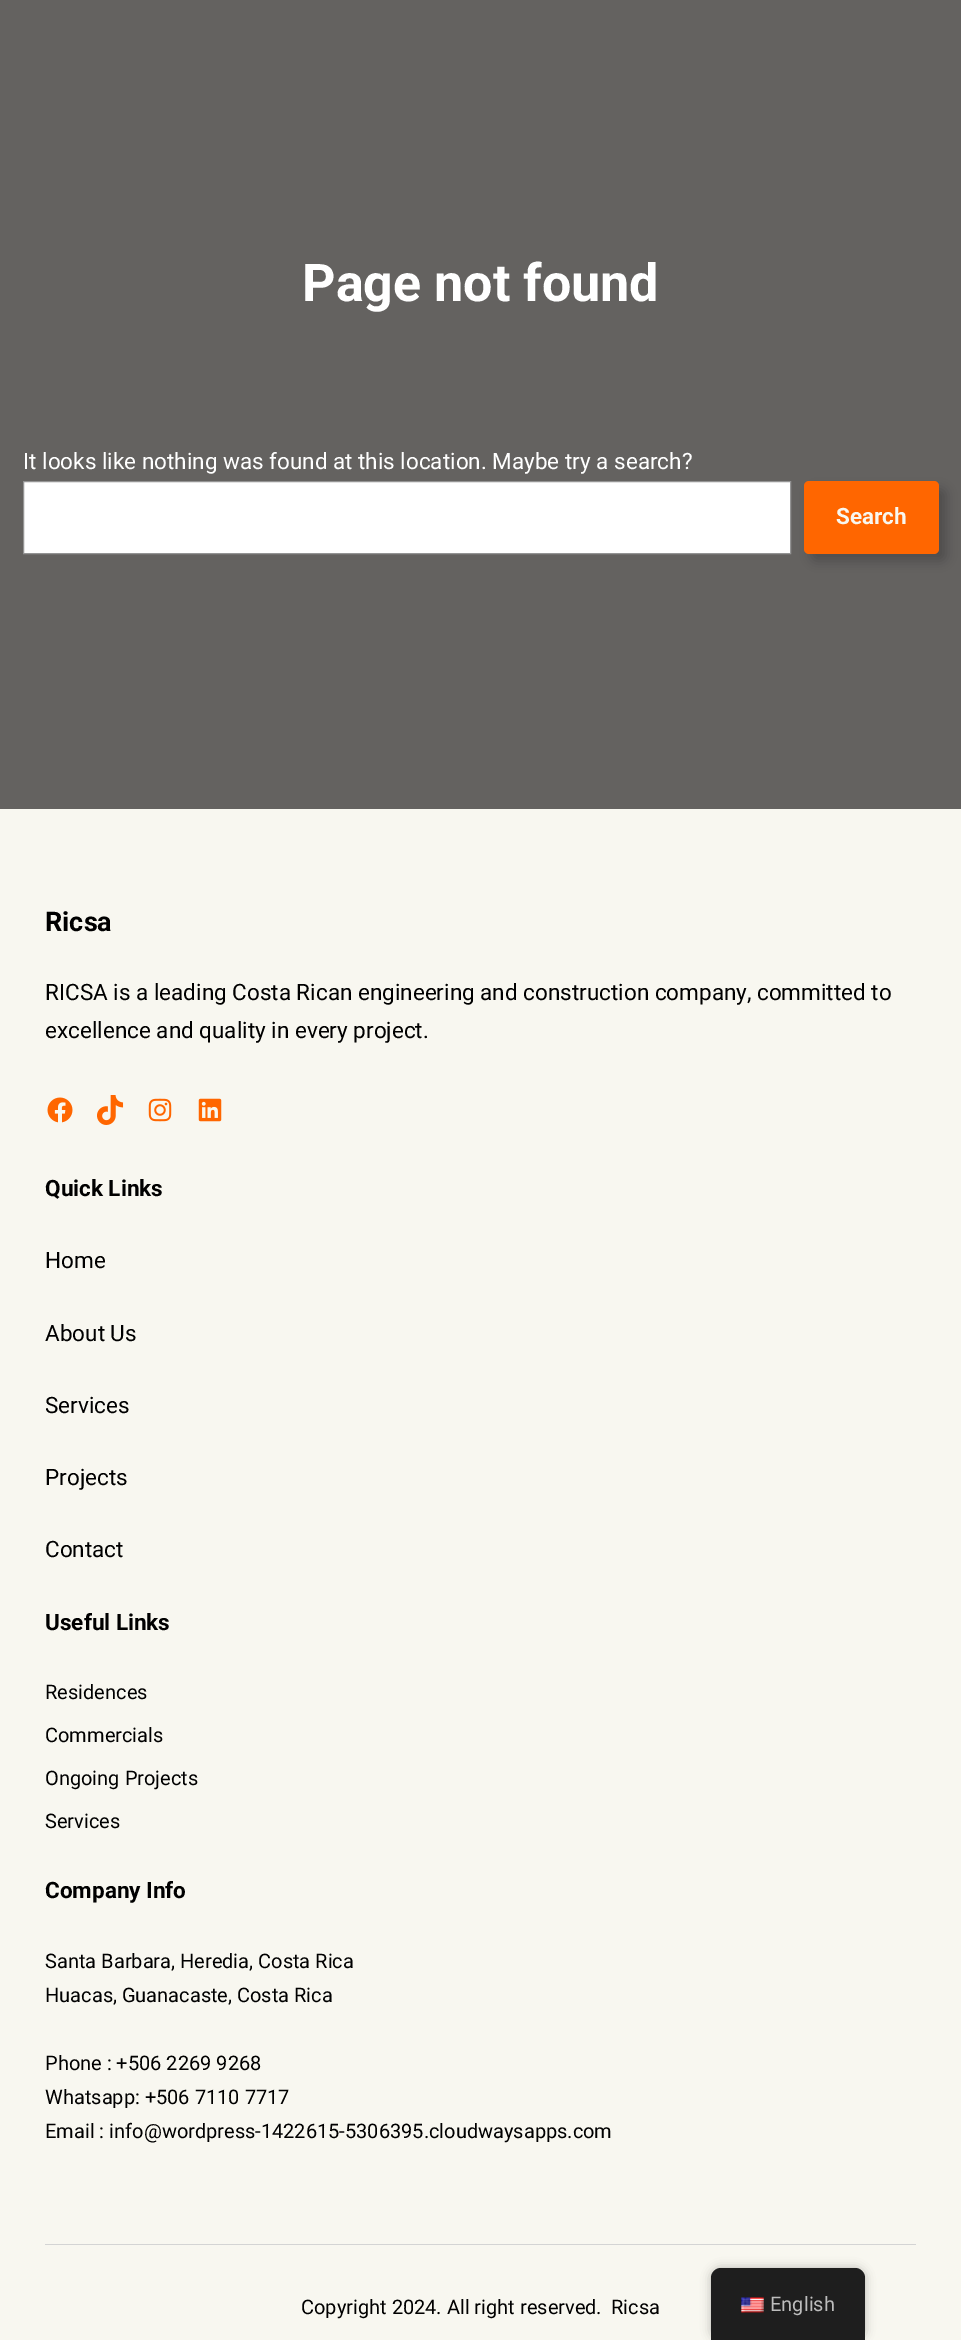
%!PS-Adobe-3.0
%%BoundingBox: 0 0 961 2340
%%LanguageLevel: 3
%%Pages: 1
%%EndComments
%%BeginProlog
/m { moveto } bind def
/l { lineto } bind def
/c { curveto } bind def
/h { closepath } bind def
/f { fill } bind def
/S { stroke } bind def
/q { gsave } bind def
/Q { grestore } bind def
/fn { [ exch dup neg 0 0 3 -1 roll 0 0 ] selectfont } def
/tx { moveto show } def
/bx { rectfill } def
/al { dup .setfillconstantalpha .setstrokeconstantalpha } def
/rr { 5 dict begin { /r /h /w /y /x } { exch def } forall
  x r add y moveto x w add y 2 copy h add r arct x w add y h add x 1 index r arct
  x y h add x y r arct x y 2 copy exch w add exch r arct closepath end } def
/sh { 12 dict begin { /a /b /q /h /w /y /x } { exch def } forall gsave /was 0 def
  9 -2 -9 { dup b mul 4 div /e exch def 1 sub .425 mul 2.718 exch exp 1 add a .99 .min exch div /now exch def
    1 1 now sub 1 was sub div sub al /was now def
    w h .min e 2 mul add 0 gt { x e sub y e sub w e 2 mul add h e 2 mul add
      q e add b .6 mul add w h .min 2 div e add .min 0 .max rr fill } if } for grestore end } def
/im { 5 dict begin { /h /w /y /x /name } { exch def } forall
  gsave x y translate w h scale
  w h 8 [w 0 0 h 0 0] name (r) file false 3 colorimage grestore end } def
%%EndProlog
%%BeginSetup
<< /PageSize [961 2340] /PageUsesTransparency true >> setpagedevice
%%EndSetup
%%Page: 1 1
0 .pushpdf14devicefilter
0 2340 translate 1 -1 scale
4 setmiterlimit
0.973 0.969 0.941 setrgbcolor
0 0 961 2340 bx
0.392 0.384 0.376 setrgbcolor
0 0 961 809 bx
/Roboto-Bold 52 fn
1 setgray
(Page not found) 302 301 tx
/Roboto-Regular 22.5 fn
(It looks like nothing was found at this location. Maybe try a search?) 23 469 tx
23.5 481.5 m 790.5 481.5 l 790.5 553.5 l 23.5 553.5 l h q f Q
0.58 setgray
S
0 setgray
811 489 135 72 5 5.5 0.2 sh
1 0.4 0 setrgbcolor
804 481 135 73 5 rr f
/Roboto-Bold 22.5 fn
0.973 0.969 0.941 setrgbcolor
(Search) 836 524 tx
/Roboto-Bold 27 fn
0 setgray
(Ricsa) 45 931 tx
/Roboto-Regular 22.5 fn
(RICSA is a leading Costa Rican engineering and construction company, committed to) 45 1000 tx
(excellence and quality in every project.) 45 1038 tx
(image0.raw) 47 1097 26 26 im
(image1.raw) 97 1095 27 30 im
(image2.raw) 148 1098 24 24 im
(image3.raw) 198 1098 24 24 im
/Roboto-Bold 22.5 fn
(Quick Links) 45 1196 tx
/Roboto-Regular 22.5 fn
(Home) 45 1268 tx
(About Us) 45 1341 tx
(Services) 45 1413 tx
(Projects) 45 1485 tx
(Contact) 45 1557 tx
/Roboto-Bold 22.5 fn
(Useful Links) 45 1630 tx
/Roboto-Regular 20 fn
(Residences) 45 1699 tx
(Commercials) 45 1742 tx
(Ongoing Projects) 45 1785 tx
(Services) 45 1828 tx
/Roboto-Bold 22.5 fn
(Company Info) 45 1898 tx
/Roboto-Regular 20 fn
(Santa Barbara, Heredia, Costa Rica) 45 1968 tx
(Huacas, Guanacaste, Costa Rica) 45 2002 tx
(Phone : +506 2269 9268) 45 2070 tx
(Whatsapp: +506 7110 7717) 45 2104 tx
(Email : info@wordpress-1422615-5306395.cloudwaysapps.com) 45 2138 tx
0.831 setgray
45 2244 871 1 bx
0 setgray
(Copyright 2024. All right reserved.) 301 2314 tx
(Ricsa) 611 2314 tx
711 2268 154 72 10 5 0.25 sh
0.118 setgray
721 2268 m 855 2268 l 860.5 2268 865 2272.5 865 2278 c 865 2340 l 711 2340 l 711 2278 l 711 2272.5 715.5 2268 721 2268 c h f
(image4.raw) 741 2297 23 16 im
0.741 setgray
(English) 770 2311 tx
.poppdf14devicefilter showpage
%%EOF
